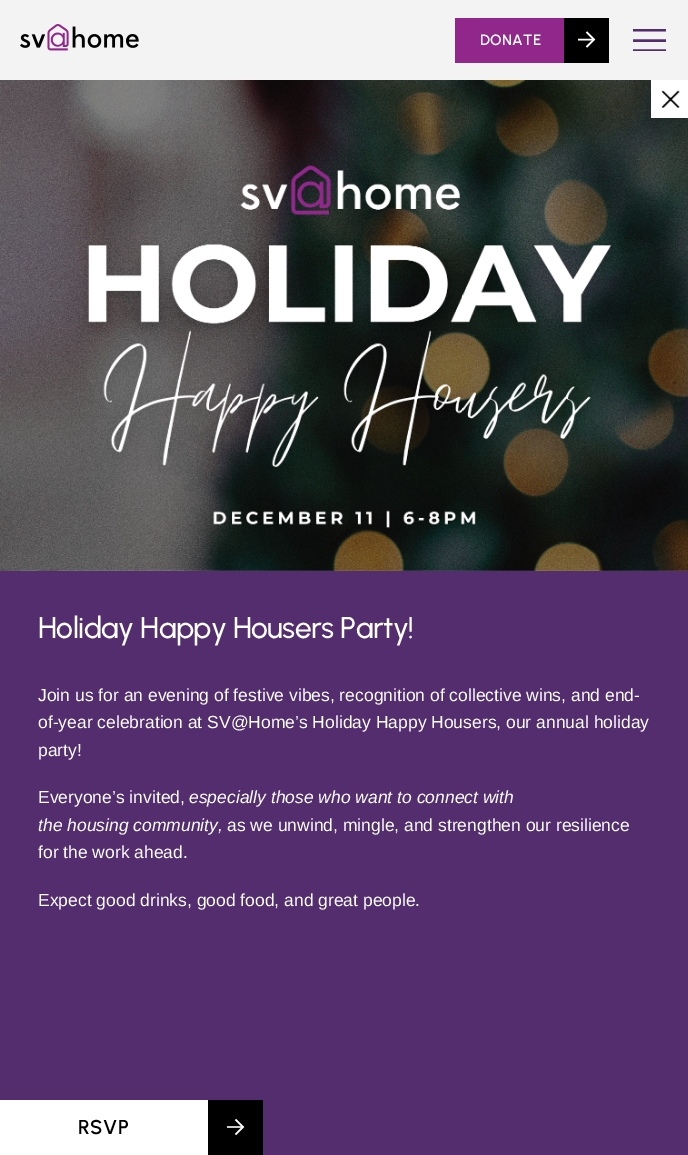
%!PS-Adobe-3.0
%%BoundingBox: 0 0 688 1155
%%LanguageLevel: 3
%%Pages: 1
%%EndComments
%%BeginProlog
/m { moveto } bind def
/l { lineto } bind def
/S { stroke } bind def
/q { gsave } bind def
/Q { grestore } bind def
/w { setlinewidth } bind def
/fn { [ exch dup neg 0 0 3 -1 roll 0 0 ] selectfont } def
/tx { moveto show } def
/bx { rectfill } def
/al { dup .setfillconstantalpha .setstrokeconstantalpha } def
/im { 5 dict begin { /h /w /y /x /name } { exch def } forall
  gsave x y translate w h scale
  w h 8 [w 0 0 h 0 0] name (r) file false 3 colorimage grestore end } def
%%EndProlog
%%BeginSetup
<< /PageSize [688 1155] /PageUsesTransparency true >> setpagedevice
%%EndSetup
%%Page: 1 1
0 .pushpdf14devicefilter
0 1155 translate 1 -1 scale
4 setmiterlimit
1 setgray
0 0 688 1155 bx
(image0.raw) 19 570 19 1 im
0.953 setgray
0 0 688 80 bx
(image1.raw) 20 24 119 27 im
0.569 0.153 0.545 setrgbcolor
455 18 109 45 bx
/Urbanist-SemiBold 15 fn
1 setgray
480 45 m 0.25 0 (DONATE) ashow
0 setgray
564 18 45 45 bx
1 setgray
1.6 w
586.5 47 m 594 39.5 l 586.5 32 l S
q
578 31 18 18 rectclip
577.5 39.5 m 594 39.5 l S
Q
q
633 29 33 22 rectclip
0.325 0.176 0.427 setrgbcolor
2.5 w
632.5 30 m 666 30 l 632.5 40.5 m 666 40.5 l 632.5 50.5 m 666 50.5 l S
Q
(image2.raw) 0 80 688 491 im
651 80 37 38 bx
(image3.raw) 661 90 19 18 im
0.325 0.176 0.427 setrgbcolor
0 571 688 584 bx
/Urbanist-Medium 30 fn
1 setgray
38 638 m -0.6 0 (Holiday Happy Housers Party!) ashow
/LiberationSans-Regular 17.5 fn
(Join us for an evening of festive vibes, recognition of collective wins, and end-) 38 701 tx
(of-year celebration at SV@Home’s Holiday Happy Housers, our annual holiday) 38 728 tx
(party!) 38 756 tx
(Everyone’s invited,) 38 803 tx
/LiberationSans-Italic 17.5 fn
(especially those who want to connect with) 189 803 tx
(the housing community,) 38 831 tx
/LiberationSans-Regular 17.5 fn
(as we unwind, mingle, and strengthen our resilience) 227 831 tx
(for the work ahead.) 38 858 tx
(Expect good drinks, good food, and great people.) 38 906 tx
0 1100 208 55 bx
/Urbanist-SemiBold 20 fn
0 setgray
78 1134 m 0.5 0 (RSVP) ashow
208 1100 55 55 bx
1 setgray
235.5 1134.5 m 243 1127 l 235.5 1119.5 l S
0.8 al
227 1126 16 2 bx
.poppdf14devicefilter showpage
%%EOF
